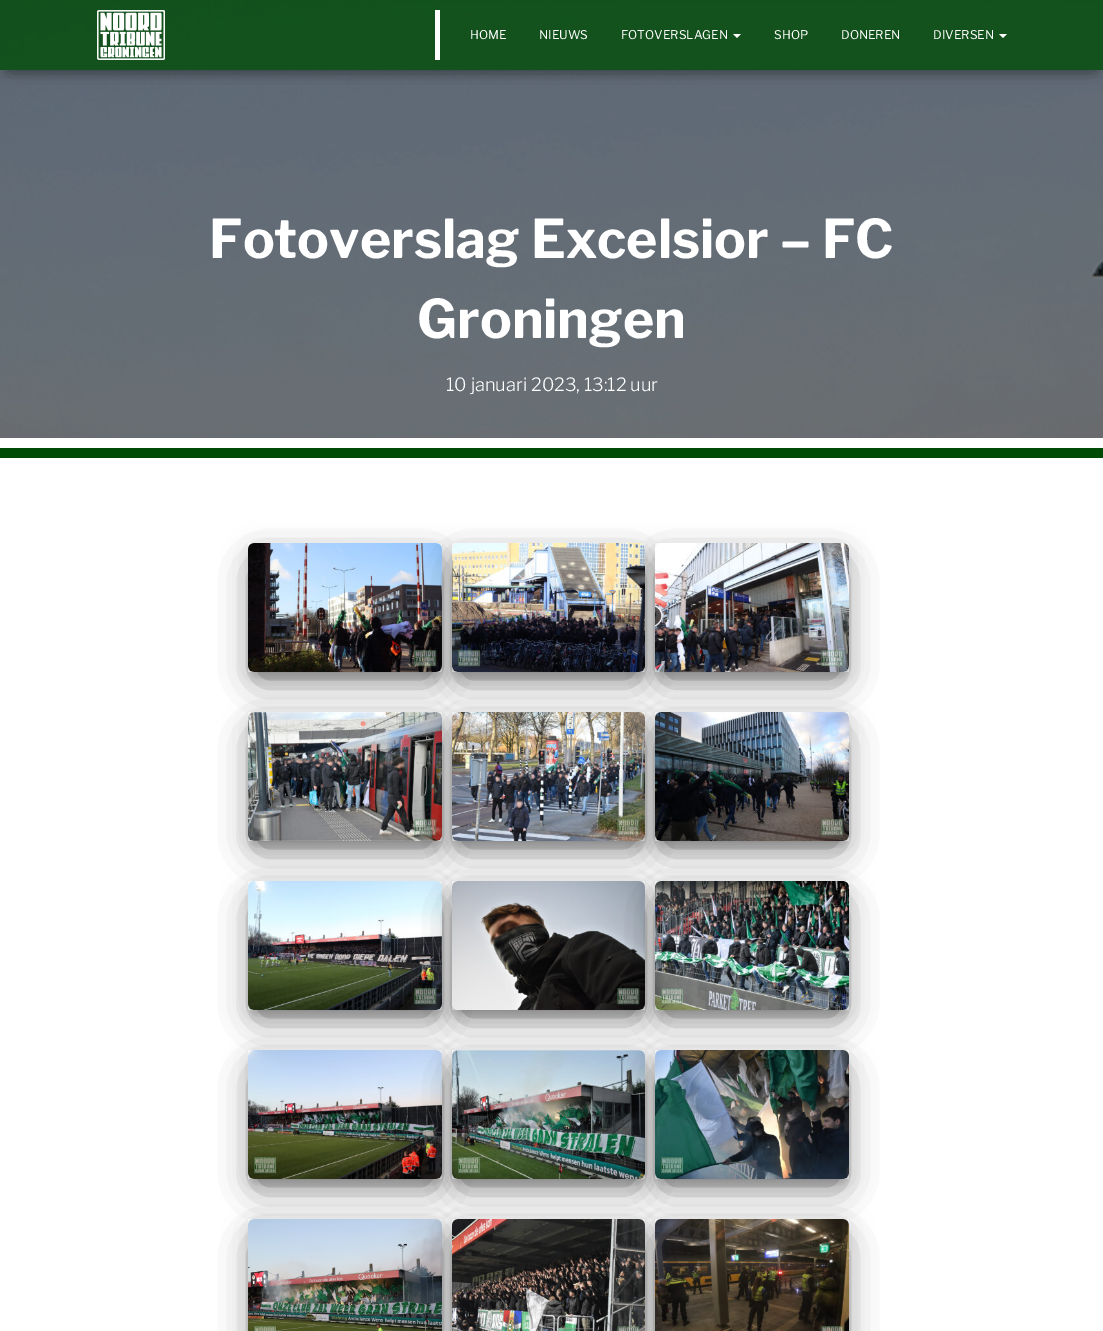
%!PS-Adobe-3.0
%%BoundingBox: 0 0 1103 1331
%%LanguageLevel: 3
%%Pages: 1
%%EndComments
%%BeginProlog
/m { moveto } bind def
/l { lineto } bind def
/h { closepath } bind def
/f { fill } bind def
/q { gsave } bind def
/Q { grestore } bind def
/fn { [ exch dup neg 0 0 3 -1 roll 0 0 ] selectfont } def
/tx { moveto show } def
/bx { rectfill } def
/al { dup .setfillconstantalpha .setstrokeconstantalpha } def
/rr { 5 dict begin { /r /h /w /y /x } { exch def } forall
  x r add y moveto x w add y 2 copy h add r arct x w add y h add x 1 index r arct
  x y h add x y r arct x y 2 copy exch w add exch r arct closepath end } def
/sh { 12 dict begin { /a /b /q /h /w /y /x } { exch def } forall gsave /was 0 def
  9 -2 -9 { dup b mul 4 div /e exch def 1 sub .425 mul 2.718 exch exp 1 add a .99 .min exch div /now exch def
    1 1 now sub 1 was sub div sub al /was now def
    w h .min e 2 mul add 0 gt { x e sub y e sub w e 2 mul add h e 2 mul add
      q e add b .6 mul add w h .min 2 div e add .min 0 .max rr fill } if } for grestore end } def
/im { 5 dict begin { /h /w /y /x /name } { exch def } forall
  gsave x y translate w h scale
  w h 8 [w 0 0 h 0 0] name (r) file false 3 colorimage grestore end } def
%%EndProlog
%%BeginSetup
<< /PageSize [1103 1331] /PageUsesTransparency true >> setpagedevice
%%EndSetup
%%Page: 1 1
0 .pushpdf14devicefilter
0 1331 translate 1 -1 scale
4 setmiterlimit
1 setgray
0 0 1103 1331 bx
(image1.raw) 0 0 1103 438 im
q
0 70 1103 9 rectclip
0 setgray
5 13 1093 60 0 5 0.2 sh
Q
q
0 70 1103 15 rectclip
0 setgray
12 22 1079 46 0 10 0.42 sh
Q
0.8 al
0 0.298 0.027 setrgbcolor
0 0 1103 70 bx
1 al
(image0.raw) 97 10 68 50 im
1 setgray
435 10 5 50 bx
/LibreFranklin-Regular 12 fn
(HOME) 470 39 tx
(NIEUWS) 539 39 tx
(FOTOVERSLAGEN) 621 39 tx
733 34 m 741 34 l 737 38 l h f
(SHOP) 774 39 tx
(DONEREN) 841 39 tx
(DIVERSEN) 933 39 tx
999 34 m 1007 34 l 1003 38 l h f
/LibreFranklin-Bold 53.25 fn
(Fotoverslag Excelsior – FC) 209 258 tx
(Groningen) 417 338 tx
/LibreFranklin-Light 18.25 fn
(10 januari 2023, 13:12 uur) 446 391 tx
0 0.298 0.027 setrgbcolor
0 448 1103 10 bx
0 setgray
248 547 194 129 6 12.5 0.12 sh
260 571 170 105 0 19 0.56 sh
253 556 184 119 1 5 0.2 sh
(image2.raw) 248 543 194 129 im
452 547 193 129 6 12.5 0.12 sh
464 571 169 105 0 19 0.56 sh
457 556 183 119 1 5 0.2 sh
(image3.raw) 452 543 193 129 im
655 547 194 129 6 12.5 0.12 sh
667 571 170 105 0 19 0.56 sh
660 556 184 119 1 5 0.2 sh
(image4.raw) 655 543 194 129 im
248 716 194 129 6 12.5 0.12 sh
260 740 170 105 0 19 0.56 sh
253 725 184 119 1 5 0.2 sh
(image5.raw) 248 712 194 129 im
452 716 193 129 6 12.5 0.12 sh
464 740 169 105 0 19 0.56 sh
457 725 183 119 1 5 0.2 sh
(image6.raw) 452 712 193 129 im
655 716 194 129 6 12.5 0.12 sh
667 740 170 105 0 19 0.56 sh
660 725 184 119 1 5 0.2 sh
(image7.raw) 655 712 194 129 im
248 885 194 129 6 12.5 0.12 sh
260 909 170 105 0 19 0.56 sh
253 894 184 119 1 5 0.2 sh
(image8.raw) 248 881 194 129 im
452 885 193 129 6 12.5 0.12 sh
464 909 169 105 0 19 0.56 sh
457 894 183 119 1 5 0.2 sh
(image9.raw) 452 881 193 129 im
655 885 194 129 6 12.5 0.12 sh
667 909 170 105 0 19 0.56 sh
660 894 184 119 1 5 0.2 sh
(image10.raw) 655 881 194 129 im
248 1054 194 129 6 12.5 0.12 sh
260 1078 170 105 0 19 0.56 sh
253 1063 184 119 1 5 0.2 sh
(image11.raw) 248 1050 194 129 im
452 1054 193 129 6 12.5 0.12 sh
464 1078 169 105 0 19 0.56 sh
457 1063 183 119 1 5 0.2 sh
(image12.raw) 452 1050 193 129 im
655 1054 194 129 6 12.5 0.12 sh
667 1078 170 105 0 19 0.56 sh
660 1063 184 119 1 5 0.2 sh
(image13.raw) 655 1050 194 129 im
248 1223 194 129 6 12.5 0.12 sh
260 1247 170 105 0 19 0.56 sh
253 1232 184 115 1 5 0.2 sh
(image14.raw) 248 1219 194 112 im
452 1223 193 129 6 12.5 0.12 sh
464 1247 169 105 0 19 0.56 sh
457 1232 183 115 1 5 0.2 sh
(image15.raw) 452 1219 193 112 im
655 1223 194 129 6 12.5 0.12 sh
667 1247 170 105 0 19 0.56 sh
660 1232 184 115 1 5 0.2 sh
(image16.raw) 655 1219 194 112 im
.poppdf14devicefilter showpage
%%EOF
